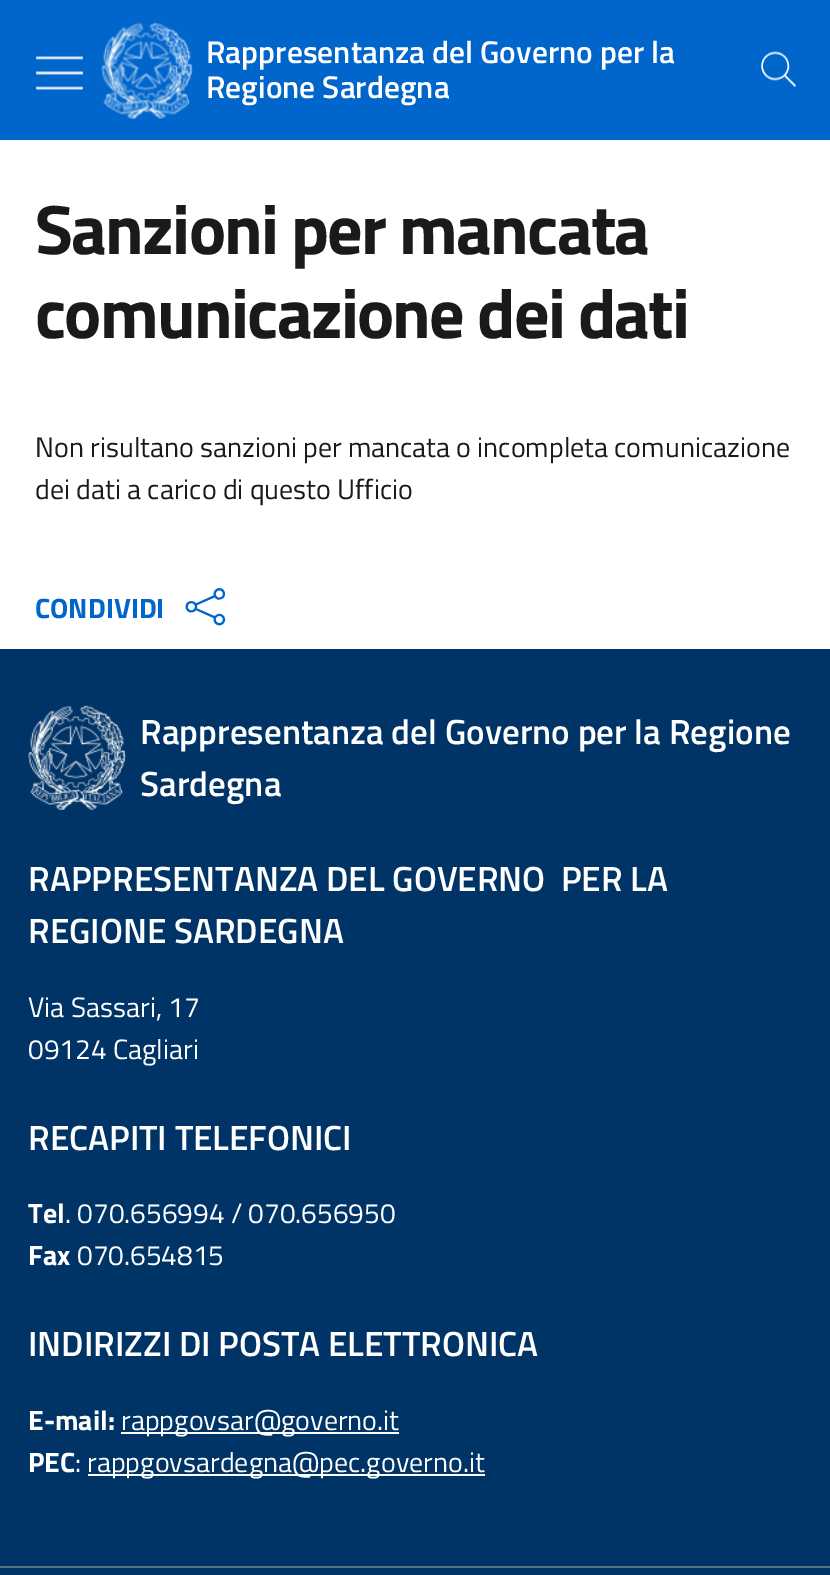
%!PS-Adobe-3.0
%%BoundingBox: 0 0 830 1575
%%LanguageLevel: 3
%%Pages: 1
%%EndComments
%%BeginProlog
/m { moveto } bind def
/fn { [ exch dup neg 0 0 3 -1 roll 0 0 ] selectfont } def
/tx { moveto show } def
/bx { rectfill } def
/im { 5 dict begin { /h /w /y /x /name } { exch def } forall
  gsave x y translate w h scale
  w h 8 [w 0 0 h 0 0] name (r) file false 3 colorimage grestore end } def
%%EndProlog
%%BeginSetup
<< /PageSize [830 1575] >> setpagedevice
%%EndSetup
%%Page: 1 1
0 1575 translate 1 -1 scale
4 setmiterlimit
1 setgray
0 0 830 1575 bx
0 0.4 0.8 setrgbcolor
0 0 830 140 bx
(image0.raw) 36 56 47 34 im
(image1.raw) 101 22 92 97 im
/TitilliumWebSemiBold-SemiBold 31.5 fn
1 setgray
(Rappresentanza del Governo per la) 206 63 tx
(Regione Sardegna) 206 98 tx
(image2.raw) 761 51 35 37 im
/TitilliumWeb-Bold 70 fn
0.102 setgray
35 254 m -1.75 0 (Sanzioni per mancata) ashow
35 338 m -1.75 0 (comunicazione dei dati) ashow
/TitilliumWeb-Regular 28 fn
(Non risultano sanzioni per mancata o incompleta comunicazione) 35 457 tx
(dei dati a carico di questo Ufficio) 35 499 tx
/TitilliumWeb-Bold 28 fn
0 0.4 0.8 setrgbcolor
(CONDIVIDI) 35 618 tx
(image3.raw) 185 588 41 38 im
0 0.2 0.4 setrgbcolor
0 649 830 917 bx
(image4.raw) 28 705 98 105 im
/TitilliumWebSemiBold-SemiBold 35 fn
1 setgray
(Rappresentanza del Governo per la Regione) 140 744 tx
(Sardegna) 140 796 tx
0.365 0.439 0.514 setrgbcolor
0 1566 830 2 bx
1 setgray
(RAPPRESENTANZA DEL GOVERNO  PER LA) 28 891 tx
(REGIONE SARDEGNA) 28 943 tx
/TitilliumWeb-Regular 28 fn
(Via Sassari, 17) 28 1017 tx
(09124 Cagliari) 28 1059 tx
/TitilliumWebSemiBold-SemiBold 35 fn
(RECAPITI TELEFONICI) 28 1150 tx
/TitilliumWeb-Bold 28 fn
(Tel) 28 1223 tx
/TitilliumWeb-Regular 28 fn
(. 070.656994 / 070.656950) 65 1223 tx
/TitilliumWeb-Bold 28 fn
(Fax) 28 1265 tx
/TitilliumWeb-Regular 28 fn
(070.654815) 77 1265 tx
/TitilliumWebSemiBold-SemiBold 35 fn
(INDIRIZZI DI POSTA ELETTRONICA) 28 1356 tx
/TitilliumWeb-Bold 28 fn
(E-mail:) 28 1430 tx
121 1432 278 2 bx
/TitilliumWeb-Regular 28 fn
(rappgovsar@governo.it) 121 1430 tx
/TitilliumWeb-Bold 28 fn
(PEC) 28 1472 tx
/TitilliumWeb-Regular 28 fn
(:) 75 1472 tx
88 1474 397 2 bx
(rappgovsardegna@pec.governo.it) 87 1472 tx
0 0.2 0.4 setrgbcolor
0 1568 830 7 bx
showpage
%%EOF
